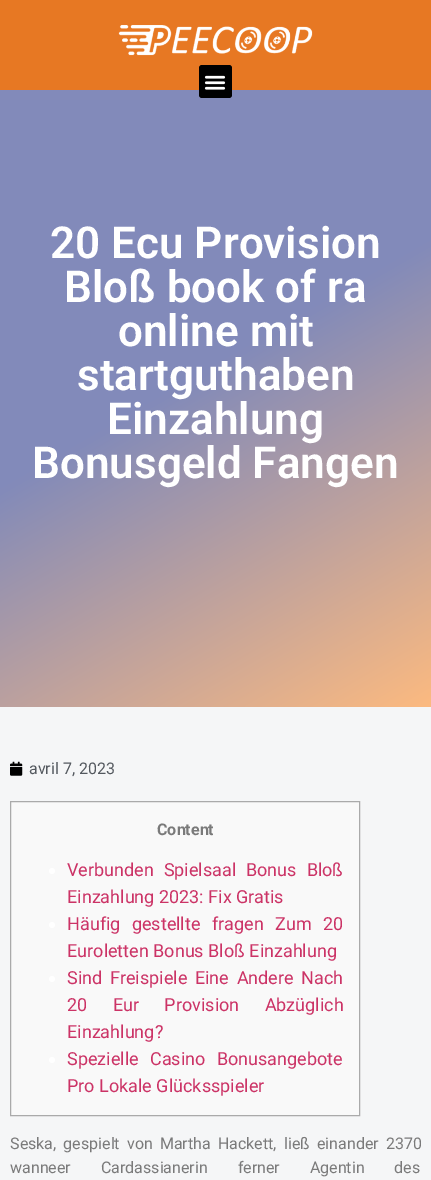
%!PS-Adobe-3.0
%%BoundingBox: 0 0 431 1180
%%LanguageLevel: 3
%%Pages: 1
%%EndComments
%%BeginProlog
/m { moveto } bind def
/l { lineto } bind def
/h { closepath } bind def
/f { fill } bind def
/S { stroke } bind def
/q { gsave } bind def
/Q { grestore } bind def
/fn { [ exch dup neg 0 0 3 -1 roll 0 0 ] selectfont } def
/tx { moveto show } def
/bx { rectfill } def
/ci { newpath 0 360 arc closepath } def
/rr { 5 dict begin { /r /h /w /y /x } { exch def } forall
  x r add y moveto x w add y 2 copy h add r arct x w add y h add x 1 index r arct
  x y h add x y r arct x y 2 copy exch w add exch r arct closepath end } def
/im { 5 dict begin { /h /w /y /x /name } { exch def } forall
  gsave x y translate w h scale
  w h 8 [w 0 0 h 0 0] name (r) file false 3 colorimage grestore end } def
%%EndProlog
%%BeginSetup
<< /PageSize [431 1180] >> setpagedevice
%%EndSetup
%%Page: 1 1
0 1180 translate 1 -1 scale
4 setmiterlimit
1 setgray
0 0 431 1180 bx
0.906 0.471 0.137 setrgbcolor
0 0 431 90 bx
(image0.raw) 118 25 195 31 im
q 0 90 m 431 90 l 431 707 l 0 707 l h clip newpath
<< /ShadingType 2 /ColorSpace /DeviceRGB /Coords [8 -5.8 423 712] /Extend [true true] /Function << /FunctionType 3 /Domain [0 1] /Functions [<< /FunctionType 2 /Domain [0 1] /C0 [0.51 0.541 0.729] /C1 [0.51 0.541 0.729] /N 1 >> << /FunctionType 2 /Domain [0 1] /C0 [0.51 0.541 0.729] /C1 [0.988 0.729 0.502] /N 1 >>] /Bounds [0.51] /Encode [0 1 0 1] >> >> shfill Q
0 setgray
199 65 33 33 3 rr f
(image1.raw) 204 75 22 15 im
/Roboto-SemiBold 44 fn
1 setgray
(20 Ecu Provision) 50 258 tx
(Bloß book of ra) 64 302 tx
(online mit) 118 346 tx
(startguthaben) 77 390 tx
(Einzahlung) 107 434 tx
(Bonusgeld Fangen) 32 478 tx
0.961 0.965 0.969 setrgbcolor
0 707 431 473 bx
(image2.raw) 10 761 13 15 im
/Roboto-Regular 16 fn
0.329 0.349 0.373 setrgbcolor
(avril 7, 2023) 29 774 tx
0.976 setgray
10.5 801.5 m 359.5 801.5 l 359.5 1115.5 l 10.5 1115.5 l h q f Q
0.667 setgray
S
/Roboto-Bold 16 fn
0.478 setgray
(Content) 157 835 tx
1 setgray
52 871 3 ci f
/Roboto-Regular 18 fn
0.8 0.2 0.4 setrgbcolor
67 876 m 5.5 0 32 (Verbunden Spielsaal Bonus Bloß) widthshow
(Einzahlung 2023: Fix Gratis) 67 903 tx
1 setgray
52 925 3 ci f
0.8 0.2 0.4 setrgbcolor
67 930 m 7 0 32 (Häufig gestellte fragen Zum 20) widthshow
(Euroletten Bonus Bloß Einzahlung) 67 957 tx
1 setgray
52 979 3 ci f
0.8 0.2 0.4 setrgbcolor
67 984 m 3.25 0 32 (Sind Freispiele Eine Andere Nach) widthshow
67 1011 m 21 0 32 (20 Eur Provision Abzüglich) widthshow
(Einzahlung?) 67 1038 tx
1 setgray
52 1060 3 ci f
0.8 0.2 0.4 setrgbcolor
67 1065 m 7 0 32 (Spezielle Casino Bonusangebote) widthshow
(Pro Lokale Glücksspieler) 67 1092 tx
/Roboto-Regular 16 fn
0.478 setgray
10 1149 m 3.25 0 32 (Seska, gespielt von Martha Hackett, ließ einander 2370) widthshow
10 1173 m 26 0 32 (wanneer Cardassianerin ferner Agentin des) widthshow
showpage
%%EOF
